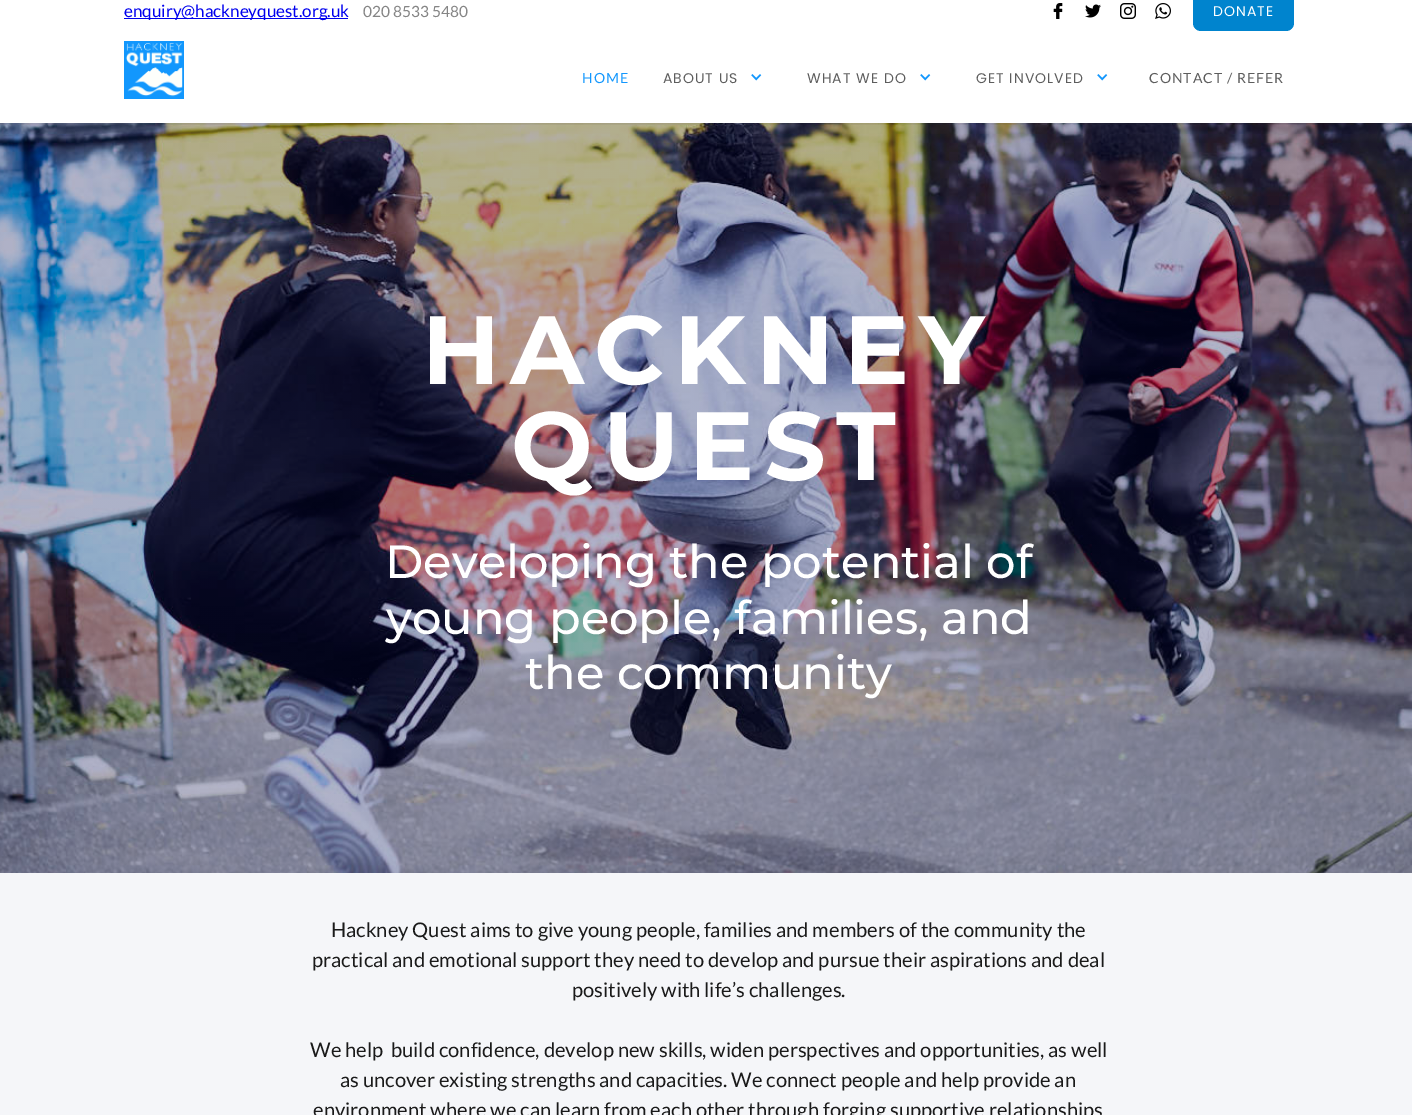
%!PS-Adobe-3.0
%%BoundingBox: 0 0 1412 1115
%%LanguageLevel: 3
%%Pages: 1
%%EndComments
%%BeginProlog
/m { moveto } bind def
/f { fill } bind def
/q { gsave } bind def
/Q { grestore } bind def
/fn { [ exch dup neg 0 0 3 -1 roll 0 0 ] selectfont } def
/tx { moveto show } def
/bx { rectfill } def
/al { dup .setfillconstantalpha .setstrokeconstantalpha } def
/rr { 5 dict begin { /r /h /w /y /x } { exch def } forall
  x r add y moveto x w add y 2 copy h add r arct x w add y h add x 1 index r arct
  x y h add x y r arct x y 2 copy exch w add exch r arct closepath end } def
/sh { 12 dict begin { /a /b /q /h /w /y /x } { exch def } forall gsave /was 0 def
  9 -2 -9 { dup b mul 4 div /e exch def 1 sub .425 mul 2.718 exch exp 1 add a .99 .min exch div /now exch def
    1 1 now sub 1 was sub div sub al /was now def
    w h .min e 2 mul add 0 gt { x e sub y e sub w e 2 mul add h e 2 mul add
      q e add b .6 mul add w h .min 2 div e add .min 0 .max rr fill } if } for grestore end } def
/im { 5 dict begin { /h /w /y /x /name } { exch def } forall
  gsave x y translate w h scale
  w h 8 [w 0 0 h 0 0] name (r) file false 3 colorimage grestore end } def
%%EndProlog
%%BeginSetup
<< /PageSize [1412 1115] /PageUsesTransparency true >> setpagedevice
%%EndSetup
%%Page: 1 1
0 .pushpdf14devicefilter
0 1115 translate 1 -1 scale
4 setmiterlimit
1 setgray
0 0 1412 1115 bx
(image6.raw) 0 123 1412 750 im
q
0 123 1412 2 rectclip
0 setgray
0 -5 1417 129 0 1.5 0.1 sh
Q
0 0 0.933 setrgbcolor
124 18 224 1 bx
/Lato-Regular 17 fn
(enquiry@hackneyquest.org.uk) 124 17 tx
/Lato-Regular 15.5 fn
0.522 setgray
(020 8533 5480) 363 17 tx
(image0.raw) 1053 3 10 16 im
(image1.raw) 1085 4 16 14 im
(image2.raw) 1120 3 16 16 im
(image3.raw) 1155 3 16 16 im
0 0.518 0.808 setrgbcolor
1193 -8 101 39 8 rr f
/Poppins-Regular 14 fn
1 setgray
1213 16 m 1 0 (DONATE) ashow
(image4.raw) 124 41 60 58 im
/Lato-Regular 14 fn
0.075 0.592 0.992 setrgbcolor
582 83 m 1 0 (HOME) ashow
/Poppins-Regular 14 fn
0.365 setgray
663 83 m 1 0 (ABOUT US) ashow
(image5.raw) 751 74 11 7 im
807 83 m 1 0 (WHAT WE DO) ashow
(image5.raw) 920 74 11 7 im
976 83 m 1 0 (GET INVOLVED) ashow
(image5.raw) 1097 74 11 7 im
/Lato-Regular 14 fn
1149 83 m 1 0 (CONTACT / REFER) ashow
/Montserrat-Bold 96.75 fn
1 setgray
422 384 m 10 0 (HACKNEY) ashow
511 480 m 10 0 (QUEST) ashow
/Montserrat-Medium 46.4 fn
(Developing the potential of) 385 578 tx
(young people, families, and) 386 634 tx
(the community) 525 689 tx
0.961 0.965 0.976 setrgbcolor
0 873 1412 242 bx
/Lato-Regular 20.15 fn
0.102 setgray
(Hackney Quest aims to give young people, families and members of the community the) 331 937 tx
(practical and emotional support they need to develop and pursue their aspirations and deal) 312 967 tx
(positively with life’s challenges.) 572 997 tx
(We help  build confidence, develop new skills, widen perspectives and opportunities, as well) 310 1057 tx
(as uncover existing strengths and capacities. We connect people and help provide an) 340 1087 tx
(environment where we can learn from each other through forging supportive relationships) 313 1117 tx
.poppdf14devicefilter showpage
%%EOF
